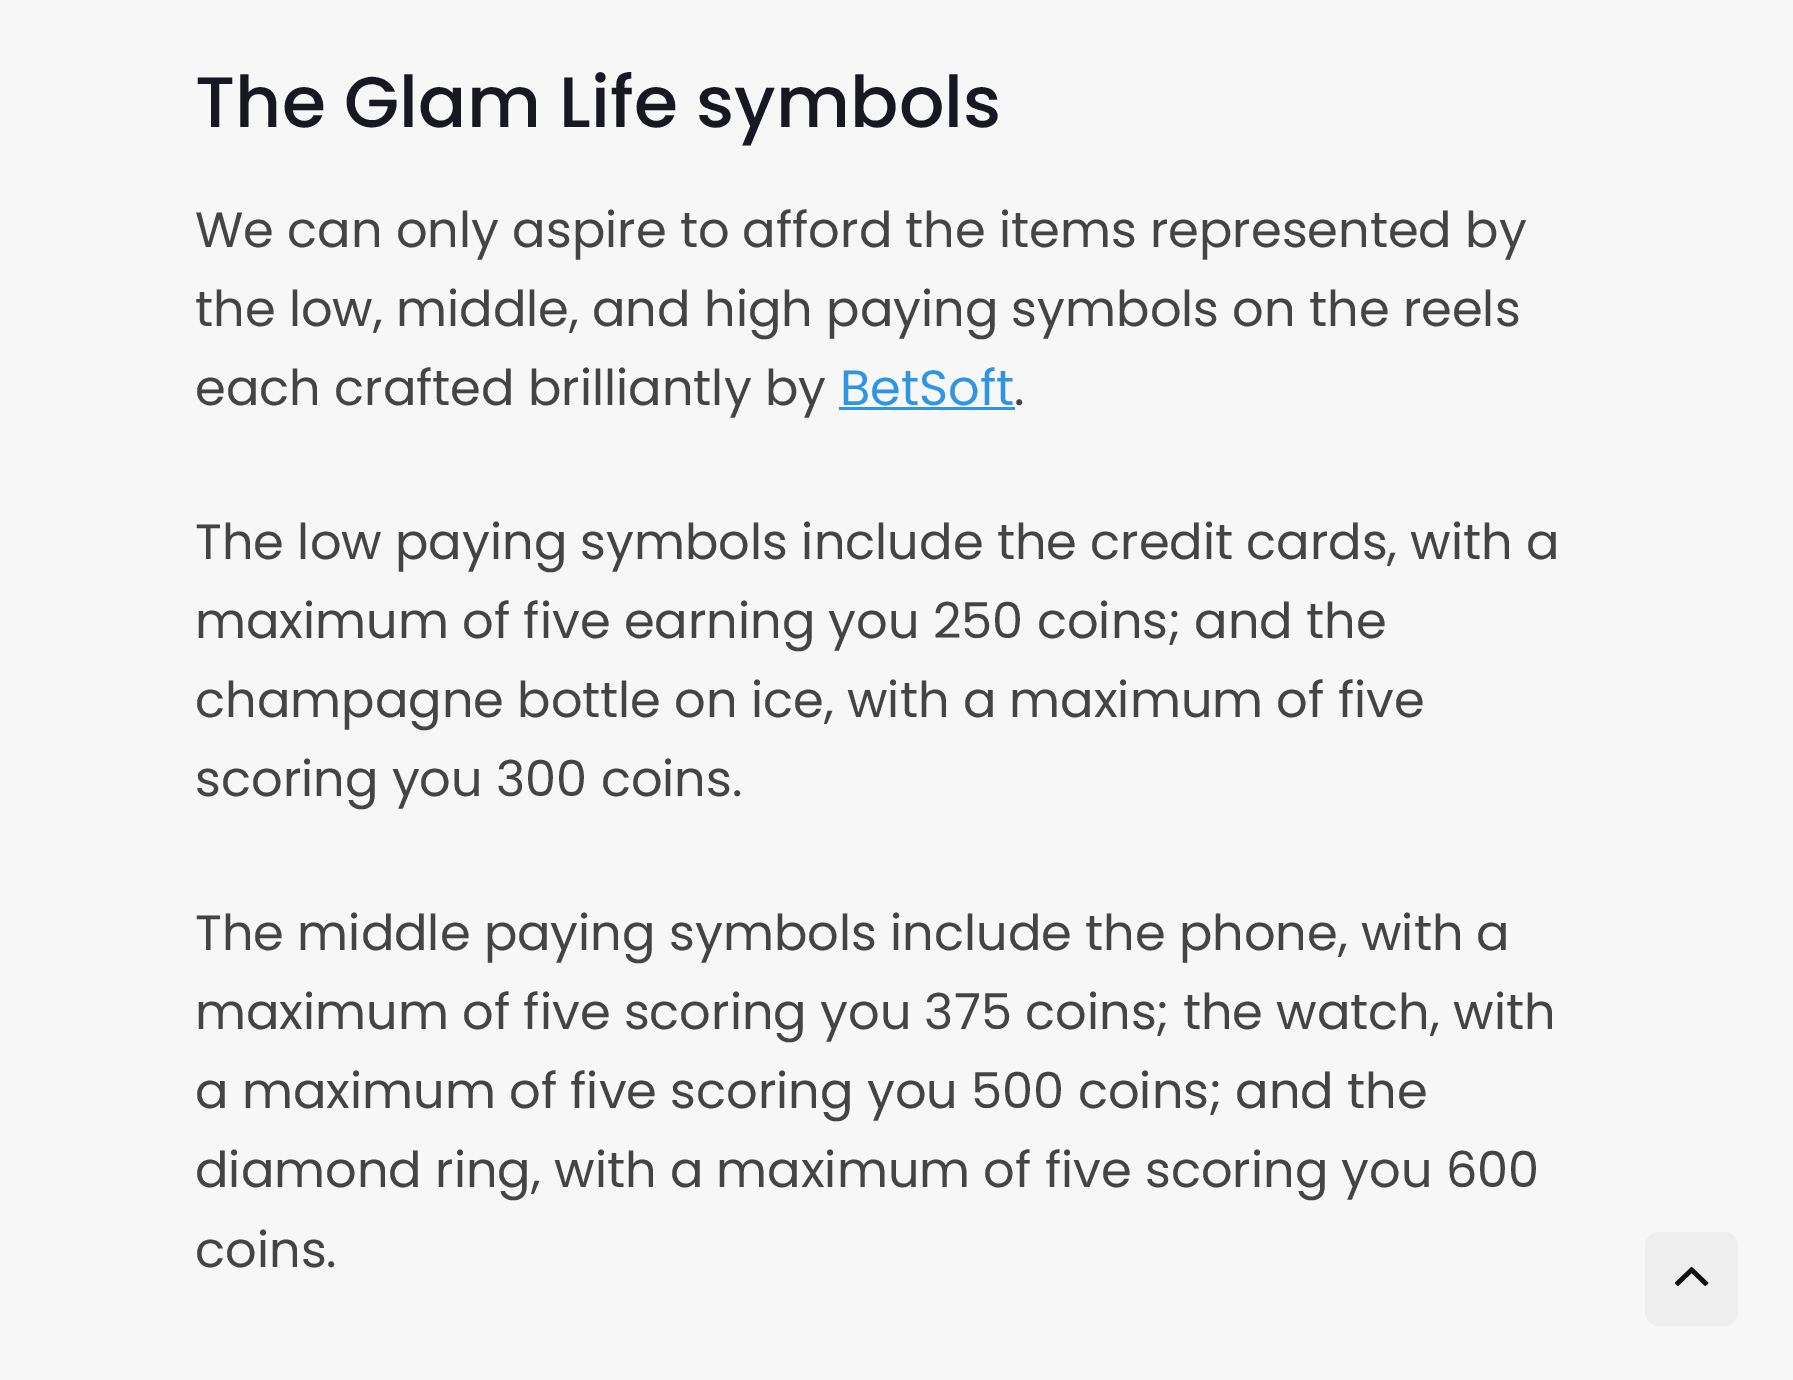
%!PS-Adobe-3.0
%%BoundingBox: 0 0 1793 1380
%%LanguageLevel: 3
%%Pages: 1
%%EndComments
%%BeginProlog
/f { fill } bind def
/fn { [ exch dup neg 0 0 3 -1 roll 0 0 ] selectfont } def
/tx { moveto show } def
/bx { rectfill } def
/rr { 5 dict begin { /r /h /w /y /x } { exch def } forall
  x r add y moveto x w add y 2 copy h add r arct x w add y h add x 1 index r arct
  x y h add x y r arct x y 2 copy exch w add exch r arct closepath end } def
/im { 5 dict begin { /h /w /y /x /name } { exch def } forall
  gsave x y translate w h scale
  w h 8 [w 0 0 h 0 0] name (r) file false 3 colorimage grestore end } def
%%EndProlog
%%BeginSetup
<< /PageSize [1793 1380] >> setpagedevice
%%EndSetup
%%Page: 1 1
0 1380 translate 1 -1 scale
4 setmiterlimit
0.969 setgray
0 0 1793 1380 bx
/Poppins-Medium 71.4 fn
0.09 0.094 0.129 setrgbcolor
(The Glam Life symbols) 195 127 tx
/Poppins-Regular 49.5 fn
0.267 setgray
(We can only aspire to afford the items represented by) 195 247 tx
(the low, middle, and high paying symbols on the reels) 195 326 tx
(each crafted brilliantly by) 195 405 tx
0.176 0.584 0.89 setrgbcolor
(BetSoft) 840 405 tx
839 407 176 3 bx
0.267 setgray
(.) 1014 405 tx
(The low paying symbols include the credit cards, with a) 195 559 tx
(maximum of five earning you 250 coins; and the) 195 638 tx
(champagne bottle on ice, with a maximum of five) 195 717 tx
(scoring you 300 coins.) 195 796 tx
(The middle paying symbols include the phone, with a) 195 950 tx
(maximum of five scoring you 375 coins; the watch, with) 195 1029 tx
(a maximum of five scoring you 500 coins; and the) 195 1108 tx
(diamond ring, with a maximum of five scoring you 600) 195 1187 tx
(coins.) 195 1267 tx
0.933 setgray
1645 1232 93 94 14 rr f
(image0.raw) 1674 1266 35 20 im
showpage
%%EOF
